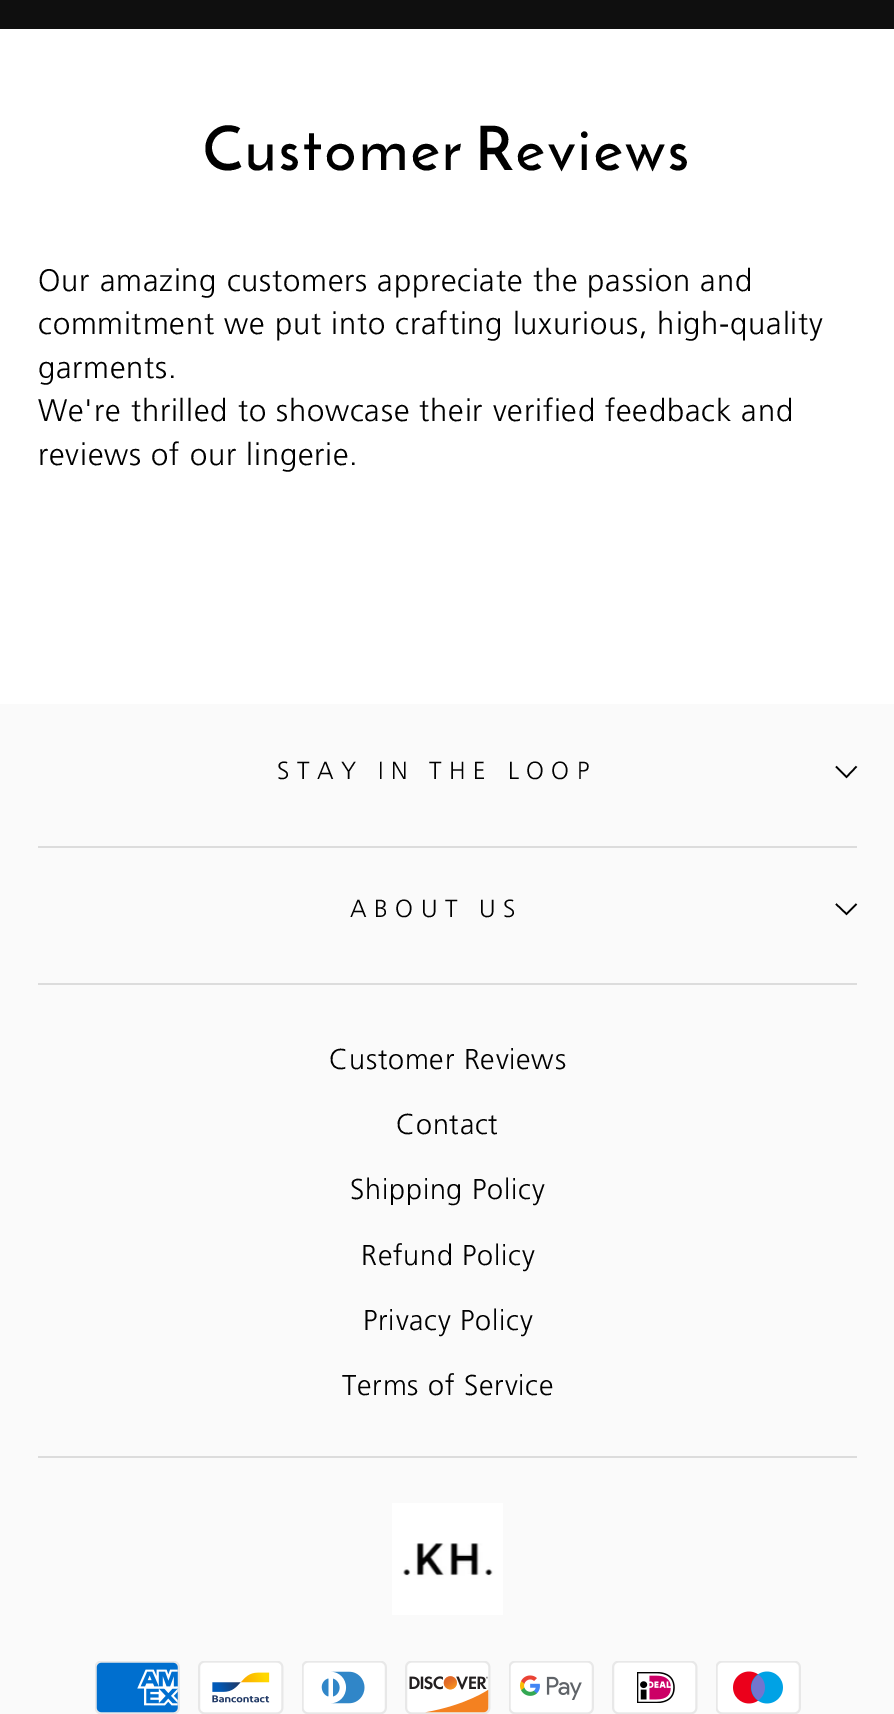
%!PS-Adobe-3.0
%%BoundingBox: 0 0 894 1714
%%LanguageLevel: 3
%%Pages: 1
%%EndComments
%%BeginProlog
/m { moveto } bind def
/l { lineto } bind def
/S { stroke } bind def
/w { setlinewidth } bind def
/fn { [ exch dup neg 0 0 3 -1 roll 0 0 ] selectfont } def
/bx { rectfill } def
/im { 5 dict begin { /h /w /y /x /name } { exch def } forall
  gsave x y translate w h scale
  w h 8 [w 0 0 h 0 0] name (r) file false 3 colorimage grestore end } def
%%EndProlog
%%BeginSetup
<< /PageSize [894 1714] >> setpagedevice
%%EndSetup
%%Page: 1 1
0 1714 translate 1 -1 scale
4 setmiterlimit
1 setgray
0 0 894 1714 bx
0.059 setgray
0 0 894 29 bx
/ReemKufi-Regular 61.25 fn
0 setgray
203 170 m 3 0 (Customer Reviews) ashow
/Frutiger-Light 31.05 fn
38 291 m 0.78 0 (Our amazing customers appreciate the passion and) ashow
38 334 m 0.78 0 (commitment we put into crafting luxurious, high-quality) ashow
38 378 m 0.78 0 (garments.) ashow
38 421 m 0.78 0 (We're thrilled to showcase their verified feedback and) ashow
38 465 m 0.78 0 (reviews of our lingerie.) ashow
0.98 setgray
0 704 894 1010 bx
/Frutiger-Light 24.8 fn
0 setgray
277 779 m 7.5 0 (STAY IN THE LOOP) ashow
1.6 w
836 766.5 m 846.5 777 l 856.5 766.5 l S
0.863 setgray
38 846 819 2 bx
0 setgray
350 917 m 7.5 0 (ABOUT US) ashow
836 904 m 846.5 914 l 856.5 904 l S
0.863 setgray
38 983 819 2 bx
/Frutiger-Light 28.75 fn
0 setgray
329 1069 m 0.78 0 (Customer Reviews) ashow
396 1134 m 0.78 0 (Contact) ashow
350 1199 m 0.78 0 (Shipping Policy) ashow
361 1265 m 0.78 0 (Refund Policy) ashow
363 1330 m 0.78 0 (Privacy Policy) ashow
342 1395 m 0.78 0 (Terms of Service) ashow
0.863 setgray
38 1456 819 2 bx
(image0.raw) 392 1503 111 112 im
(image1.raw) 95 1661 85 53 im
(image2.raw) 198 1661 86 53 im
(image3.raw) 302 1661 85 53 im
(image4.raw) 405 1661 86 53 im
(image5.raw) 509 1661 85 53 im
(image6.raw) 612 1661 86 53 im
(image7.raw) 716 1661 85 53 im
showpage
%%EOF
